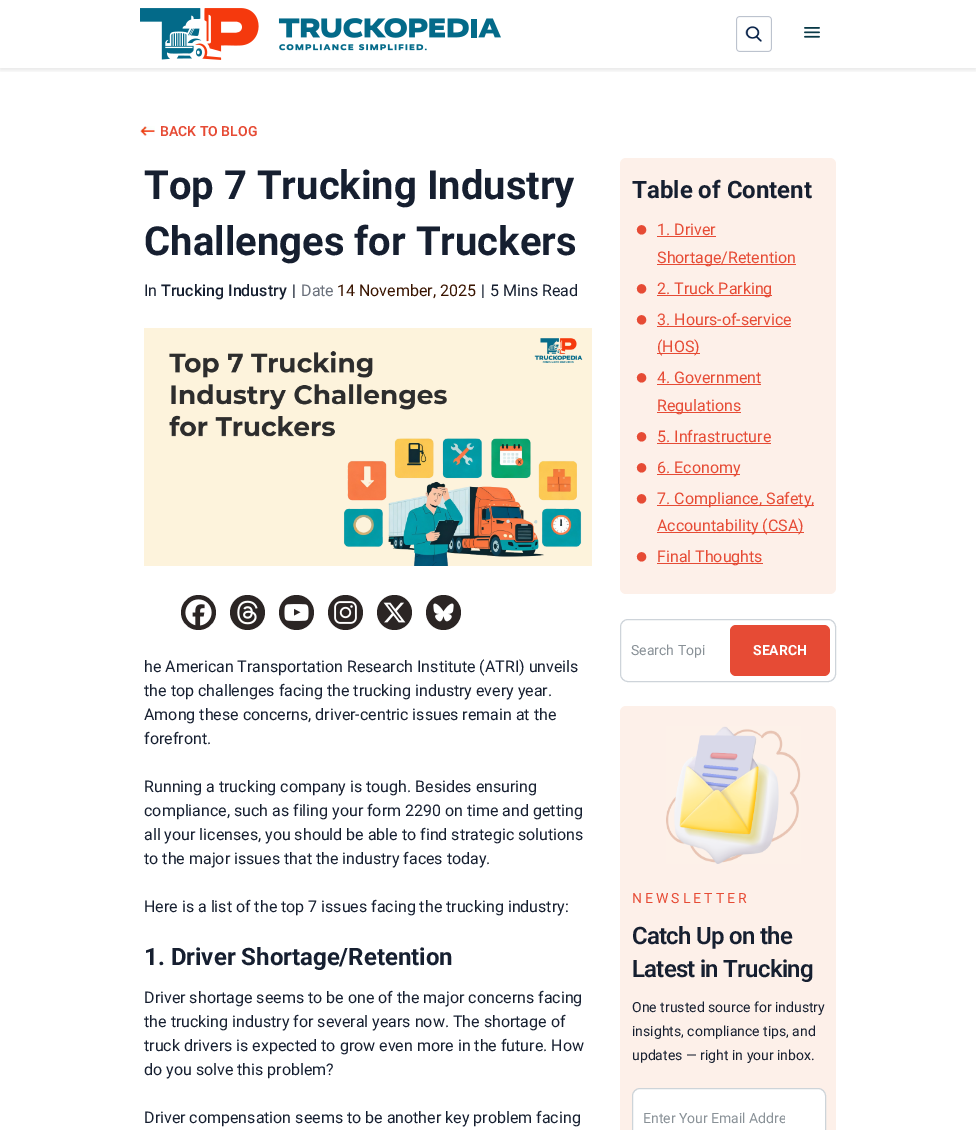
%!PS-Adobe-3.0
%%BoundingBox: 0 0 976 1130
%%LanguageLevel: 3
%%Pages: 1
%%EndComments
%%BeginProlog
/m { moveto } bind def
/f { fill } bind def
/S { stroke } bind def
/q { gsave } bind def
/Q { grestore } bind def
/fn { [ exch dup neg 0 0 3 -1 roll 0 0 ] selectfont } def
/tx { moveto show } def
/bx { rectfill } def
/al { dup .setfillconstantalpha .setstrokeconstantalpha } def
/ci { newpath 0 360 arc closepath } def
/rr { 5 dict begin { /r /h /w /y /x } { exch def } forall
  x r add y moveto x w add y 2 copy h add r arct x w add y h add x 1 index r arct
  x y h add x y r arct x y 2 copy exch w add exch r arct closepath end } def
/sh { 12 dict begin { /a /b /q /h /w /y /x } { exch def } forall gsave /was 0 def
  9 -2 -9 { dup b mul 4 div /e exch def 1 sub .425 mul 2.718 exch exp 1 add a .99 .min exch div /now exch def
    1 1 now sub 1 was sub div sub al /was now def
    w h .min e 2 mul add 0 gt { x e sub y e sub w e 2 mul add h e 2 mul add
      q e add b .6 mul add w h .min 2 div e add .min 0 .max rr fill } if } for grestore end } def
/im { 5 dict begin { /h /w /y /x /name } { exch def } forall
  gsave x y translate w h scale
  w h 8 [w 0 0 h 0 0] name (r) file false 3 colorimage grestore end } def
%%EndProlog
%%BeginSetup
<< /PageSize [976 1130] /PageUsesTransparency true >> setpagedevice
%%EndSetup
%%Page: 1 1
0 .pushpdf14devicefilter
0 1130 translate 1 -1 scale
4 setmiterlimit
1 setgray
0 0 976 1130 bx
q
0 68 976 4 rectclip
0 setgray
0 2 976 68 0 2.5 0.1 sh
Q
(image0.raw) 140 8 361 52 im
(image1.raw) 736 16 36 36 im
(image2.raw) 804 27 16 11 im
(image3.raw) 140 126 15 10 im
/Roboto-SemiBold 14 fn
0.902 0.294 0.208 setrgbcolor
(BACK TO BLOG) 160 136 tx
/Roboto-Bold 40 fn
0.086 0.122 0.188 setrgbcolor
(Top 7 Trucking Industry) 144 199 tx
(Challenges for Truckers) 144 255 tx
/Roboto-Regular 16 fn
(In) 144 296 tx
/Roboto-Medium 16 fn
(Trucking Industry) 161 296 tx
/Roboto-Regular 16 fn
(|) 292 296 tx
0.416 0.439 0.482 setrgbcolor
(Date) 301 296 tx
0.224 0.078 0 setrgbcolor
(14 November, 2025) 337 296 tx
0.086 0.122 0.188 setrgbcolor
(|) 481 296 tx
(5 Mins Read) 490 296 tx
(image4.raw) 144 328 448 238 im
0.169 0.145 0.141 setrgbcolor
198.5 612.5 17.5 ci f
(image5.raw) 185 599 27 27 im
247.5 612.5 17.5 ci f
(image6.raw) 237 600 21 25 im
296.5 612.5 17.5 ci f
(image7.raw) 284 604 25 17 im
345.5 612.5 17.5 ci f
(image8.raw) 334 601 23 23 im
394.5 612.5 17.5 ci f
(image9.raw) 383 602 23 21 im
443.5 612.5 17.5 ci f
(image10.raw) 433 603 21 19 im
0.086 0.122 0.188 setrgbcolor
(he American Transportation Research Institute \(ATRI\) unveils) 144 672 tx
(the top challenges facing the trucking industry every year.) 144 696 tx
(Among these concerns, driver-centric issues remain at the) 144 720 tx
(forefront.) 144 744 tx
(Running a trucking company is tough. Besides ensuring) 144 792 tx
(compliance, such as filing your form 2290 on time and getting) 144 816 tx
(all your licenses, you should be able to find strategic solutions) 144 840 tx
(to the major issues that the industry faces today.) 144 864 tx
(Here is a list of the top 7 issues facing the trucking industry:) 144 912 tx
/Roboto-Bold 24 fn
(1. Driver Shortage/Retention) 144 965 tx
/Roboto-Regular 16 fn
(Driver shortage seems to be one of the major concerns facing) 144 1003 tx
(the trucking industry for several years now. The shortage of) 144 1027 tx
(truck drivers is expected to grow even more in the future. How) 144 1051 tx
(do you solve this problem?) 144 1075 tx
(Driver compensation seems to be another key problem facing) 144 1123 tx
0.992 0.941 0.914 setrgbcolor
620 158 216 436 6 rr f
/Roboto-Bold 24 fn
0.086 0.122 0.188 setrgbcolor
(Table of Content) 632 198 tx
/LiberationSans-Regular 22 fn
0.902 0.294 0.208 setrgbcolor
(●) 635 236 tx
/Roboto-Regular 16 fn
(1. Driver) 657 235 tx
657 236 59 1 bx
657 264 139 1 bx
(Shortage/Retention) 657 263 tx
/LiberationSans-Regular 22 fn
(●) 635 295 tx
657 295 115 1 bx
/Roboto-Regular 16 fn
(2. Truck Parking) 657 294 tx
/LiberationSans-Regular 22 fn
(●) 635 326 tx
/Roboto-Regular 16 fn
(3. Hours-of-service) 657 325 tx
657 326 134 1 bx
657 353 43 1 bx
(\(HOS\)) 657 352 tx
/LiberationSans-Regular 22 fn
(●) 635 384 tx
/Roboto-Regular 16 fn
(4. Government) 657 383 tx
657 384 104 1 bx
657 412 84 1 bx
(Regulations) 657 411 tx
/LiberationSans-Regular 22 fn
(●) 635 443 tx
/Roboto-Regular 16 fn
(5. Infrastructure) 657 442 tx
657 443 114 1 bx
/LiberationSans-Regular 22 fn
(●) 635 474 tx
657 474 83 1 bx
/Roboto-Regular 16 fn
(6. Economy) 657 473 tx
/LiberationSans-Regular 22 fn
(●) 635 505 tx
657 505 157 1 bx
/Roboto-Regular 16 fn
(7. Compliance, Safety,) 657 504 tx
657 532 147 1 bx
(Accountability \(CSA\)) 657 531 tx
/LiberationSans-Regular 22 fn
(●) 635 563 tx
657 563 106 1 bx
/Roboto-Regular 16 fn
(Final Thoughts) 657 562 tx
0.808 0.831 0.855 setrgbcolor
620.5 619.5 215 62 7.5 rr S
/Roboto-Regular 14 fn
0.537 0.569 0.592 setrgbcolor
(Search Topi) 631 655 tx
0.902 0.294 0.208 setrgbcolor
730 625 100 51 6 rr f
/Roboto-Bold 14 fn
1 setgray
(SEARCH) 753 655 tx
0.992 0.941 0.914 setrgbcolor
620 706 216 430 6 rr f
(image11.raw) 666 726 135 138 im
/Roboto-Regular 14 fn
0.902 0.294 0.208 setrgbcolor
632 903 m 3 0 (NEWSLETTER) ashow
/Roboto-SemiBold 24 fn
0.086 0.122 0.188 setrgbcolor
632 944 m -0.75 0 (Catch Up on the) ashow
632 977 m -0.75 0 (Latest in Trucking) ashow
/Roboto-Regular 14 fn
(One trusted source for industry) 632 1012 tx
(insights, compliance tips, and) 632 1036 tx
(updates — right in your inbox.) 632 1060 tx
1 setgray
633 1089 192 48 7 rr f
0.804 0.831 0.851 setrgbcolor
632.5 1088.5 193 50 7.5 rr S
q
643 1110 142 16 rectclip
0.537 0.569 0.592 setrgbcolor
(Enter Your Email Addre) 643 1123 tx
Q
.poppdf14devicefilter showpage
%%EOF
